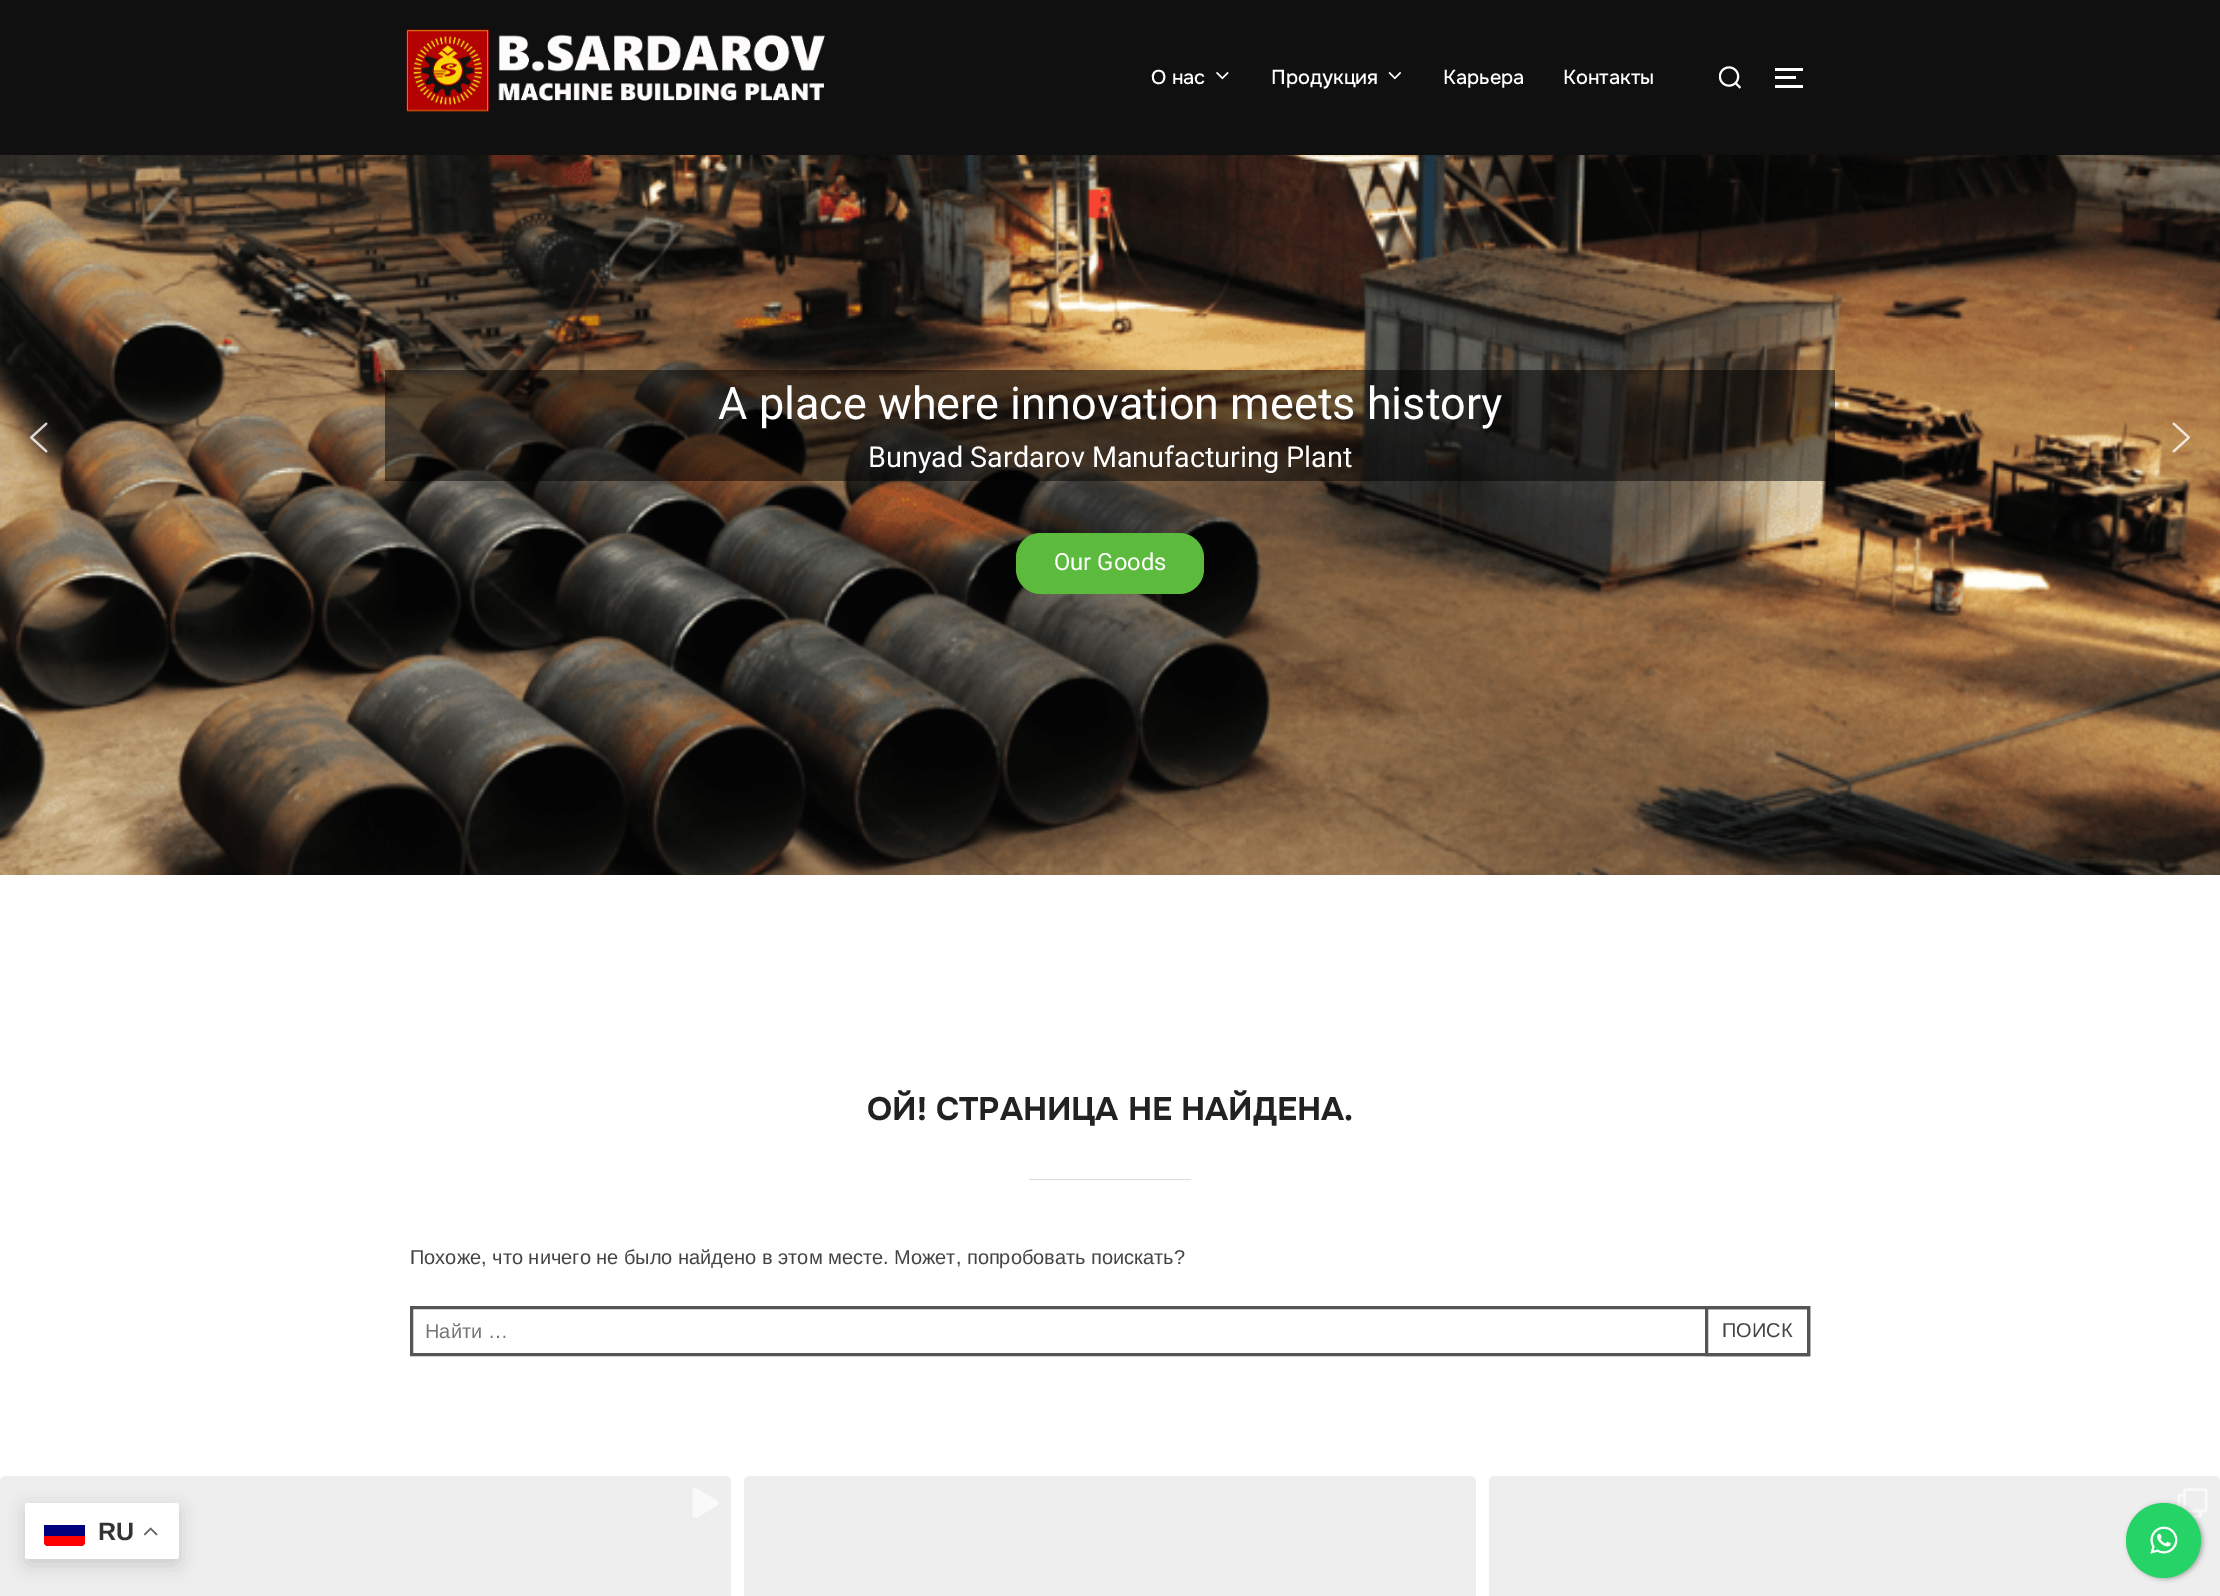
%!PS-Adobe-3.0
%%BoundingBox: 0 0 2220 1596
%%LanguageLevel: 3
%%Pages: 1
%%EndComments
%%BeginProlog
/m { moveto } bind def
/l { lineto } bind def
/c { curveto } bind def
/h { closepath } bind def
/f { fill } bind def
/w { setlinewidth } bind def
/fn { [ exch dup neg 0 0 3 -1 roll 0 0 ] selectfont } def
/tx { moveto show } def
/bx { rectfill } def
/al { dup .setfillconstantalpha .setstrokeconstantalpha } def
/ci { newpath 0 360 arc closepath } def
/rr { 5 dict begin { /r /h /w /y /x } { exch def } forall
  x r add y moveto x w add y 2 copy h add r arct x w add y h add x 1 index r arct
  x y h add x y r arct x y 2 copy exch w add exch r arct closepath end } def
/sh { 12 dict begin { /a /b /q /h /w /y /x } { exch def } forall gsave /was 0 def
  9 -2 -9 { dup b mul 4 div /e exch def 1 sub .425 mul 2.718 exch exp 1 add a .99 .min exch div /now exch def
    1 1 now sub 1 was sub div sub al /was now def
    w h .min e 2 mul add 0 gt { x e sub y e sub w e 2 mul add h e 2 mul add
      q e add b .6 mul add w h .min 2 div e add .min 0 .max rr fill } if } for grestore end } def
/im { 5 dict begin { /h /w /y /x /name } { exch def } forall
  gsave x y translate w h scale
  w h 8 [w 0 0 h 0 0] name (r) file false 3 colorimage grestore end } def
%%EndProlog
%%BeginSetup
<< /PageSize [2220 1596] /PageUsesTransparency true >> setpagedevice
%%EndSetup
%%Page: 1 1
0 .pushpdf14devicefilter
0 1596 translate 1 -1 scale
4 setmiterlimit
1 setgray
0 0 2220 1596 bx
0.063 setgray
0 0 2220 155 bx
(image0.raw) 406 29 419 83 im
/Onest-Medium 20 fn
1 setgray
(О нас) 1151 84 tx
(image1.raw) 1216 72 13 8 im
(Продукция) 1271 84 tx
(image2.raw) 1388 72 13 8 im
(Карьера) 1443 84 tx
(Контакты) 1563 84 tx
(image3.raw) 1719 66 22 23 im
1775 68 28 3 bx
1775 76 21 3 bx
1775 85 28 3 bx
/Onest-Bold 32.5 fn
0.133 setgray
(ОЙ! СТРАНИЦА НЕ НАЙДЕНА.) 867 1120 tx
0.859 setgray
1029 1179 162 1 bx
/LiberationSans-Regular 20 fn
0.267 setgray
(Похоже, что ничего не было найдено в этом месте. Может, попробовать поискать?) 410 1264 tx
0.337 0.333 0.333 setrgbcolor
3 w
411.5 1307.5 1397 47 rectstroke
0.459 setgray
(Найти …) 425 1338 tx
0.337 0.333 0.333 setrgbcolor
1706.5 1307.5 102 47 rectstroke
0.267 setgray
(ПОИСК) 1722 1337 tx
0.933 setgray
0 1476 731 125 5 rr f
(image4.raw) 692 1488 27 30 im
744 1476 732 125 5 rr f
1489 1476 731 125 5 rr f
(image5.raw) 2177 1488 31 30 im
(image7.raw) 0 155 2220 720 im
(image6.raw) 30 422 18 31 im
0.5 al
0 setgray
385 370 1450 68 bx
/Roboto-Regular 45 fn
1 al
1 setgray
(A place where innovation meets history) 718 419 tx
0.5 al
0 setgray
385 438 1450 43 bx
/Roboto-Regular 28.75 fn
1 al
1 setgray
(Bunyad Sardarov Manufacturing Plant) 868 467 tx
0.361 0.729 0.235 setrgbcolor
1016 533 188 61 25 rr f
/Roboto-Regular 23.75 fn
1 setgray
(Our Goods) 1054 570 tx
(image8.raw) 2172 422 18 31 im
0 setgray
25 1509 154 56 2.5 9.5 0.15 sh
1 setgray
25 1503 154 56 2.5 rr f
0.004 0.004 0.494 setrgbcolor
44 1525 m 85 1525 l 85 1542 l 85 1544 83 1546 81 1546 c 48 1546 l 46 1546 44 1544 44 1542 c h f
0.996 0.004 0.004 setrgbcolor
44 1536 m 85 1536 l 85 1542 l 85 1544 83 1546 81 1546 c 48 1546 l 46 1546 44 1544 44 1542 c h f
/LiberationSans-Bold 25 fn
0.2 setgray
(RU) 98 1540 tx
(image9.raw) 144 1527 14 9 im
0 setgray
2128 1504 75 75 37.5 2.5 0.3 sh
0.145 0.827 0.4 setrgbcolor
2163.5 1540.5 37.5 ci f
(image10.raw) 2150 1526 28 28 im
.poppdf14devicefilter showpage
%%EOF
